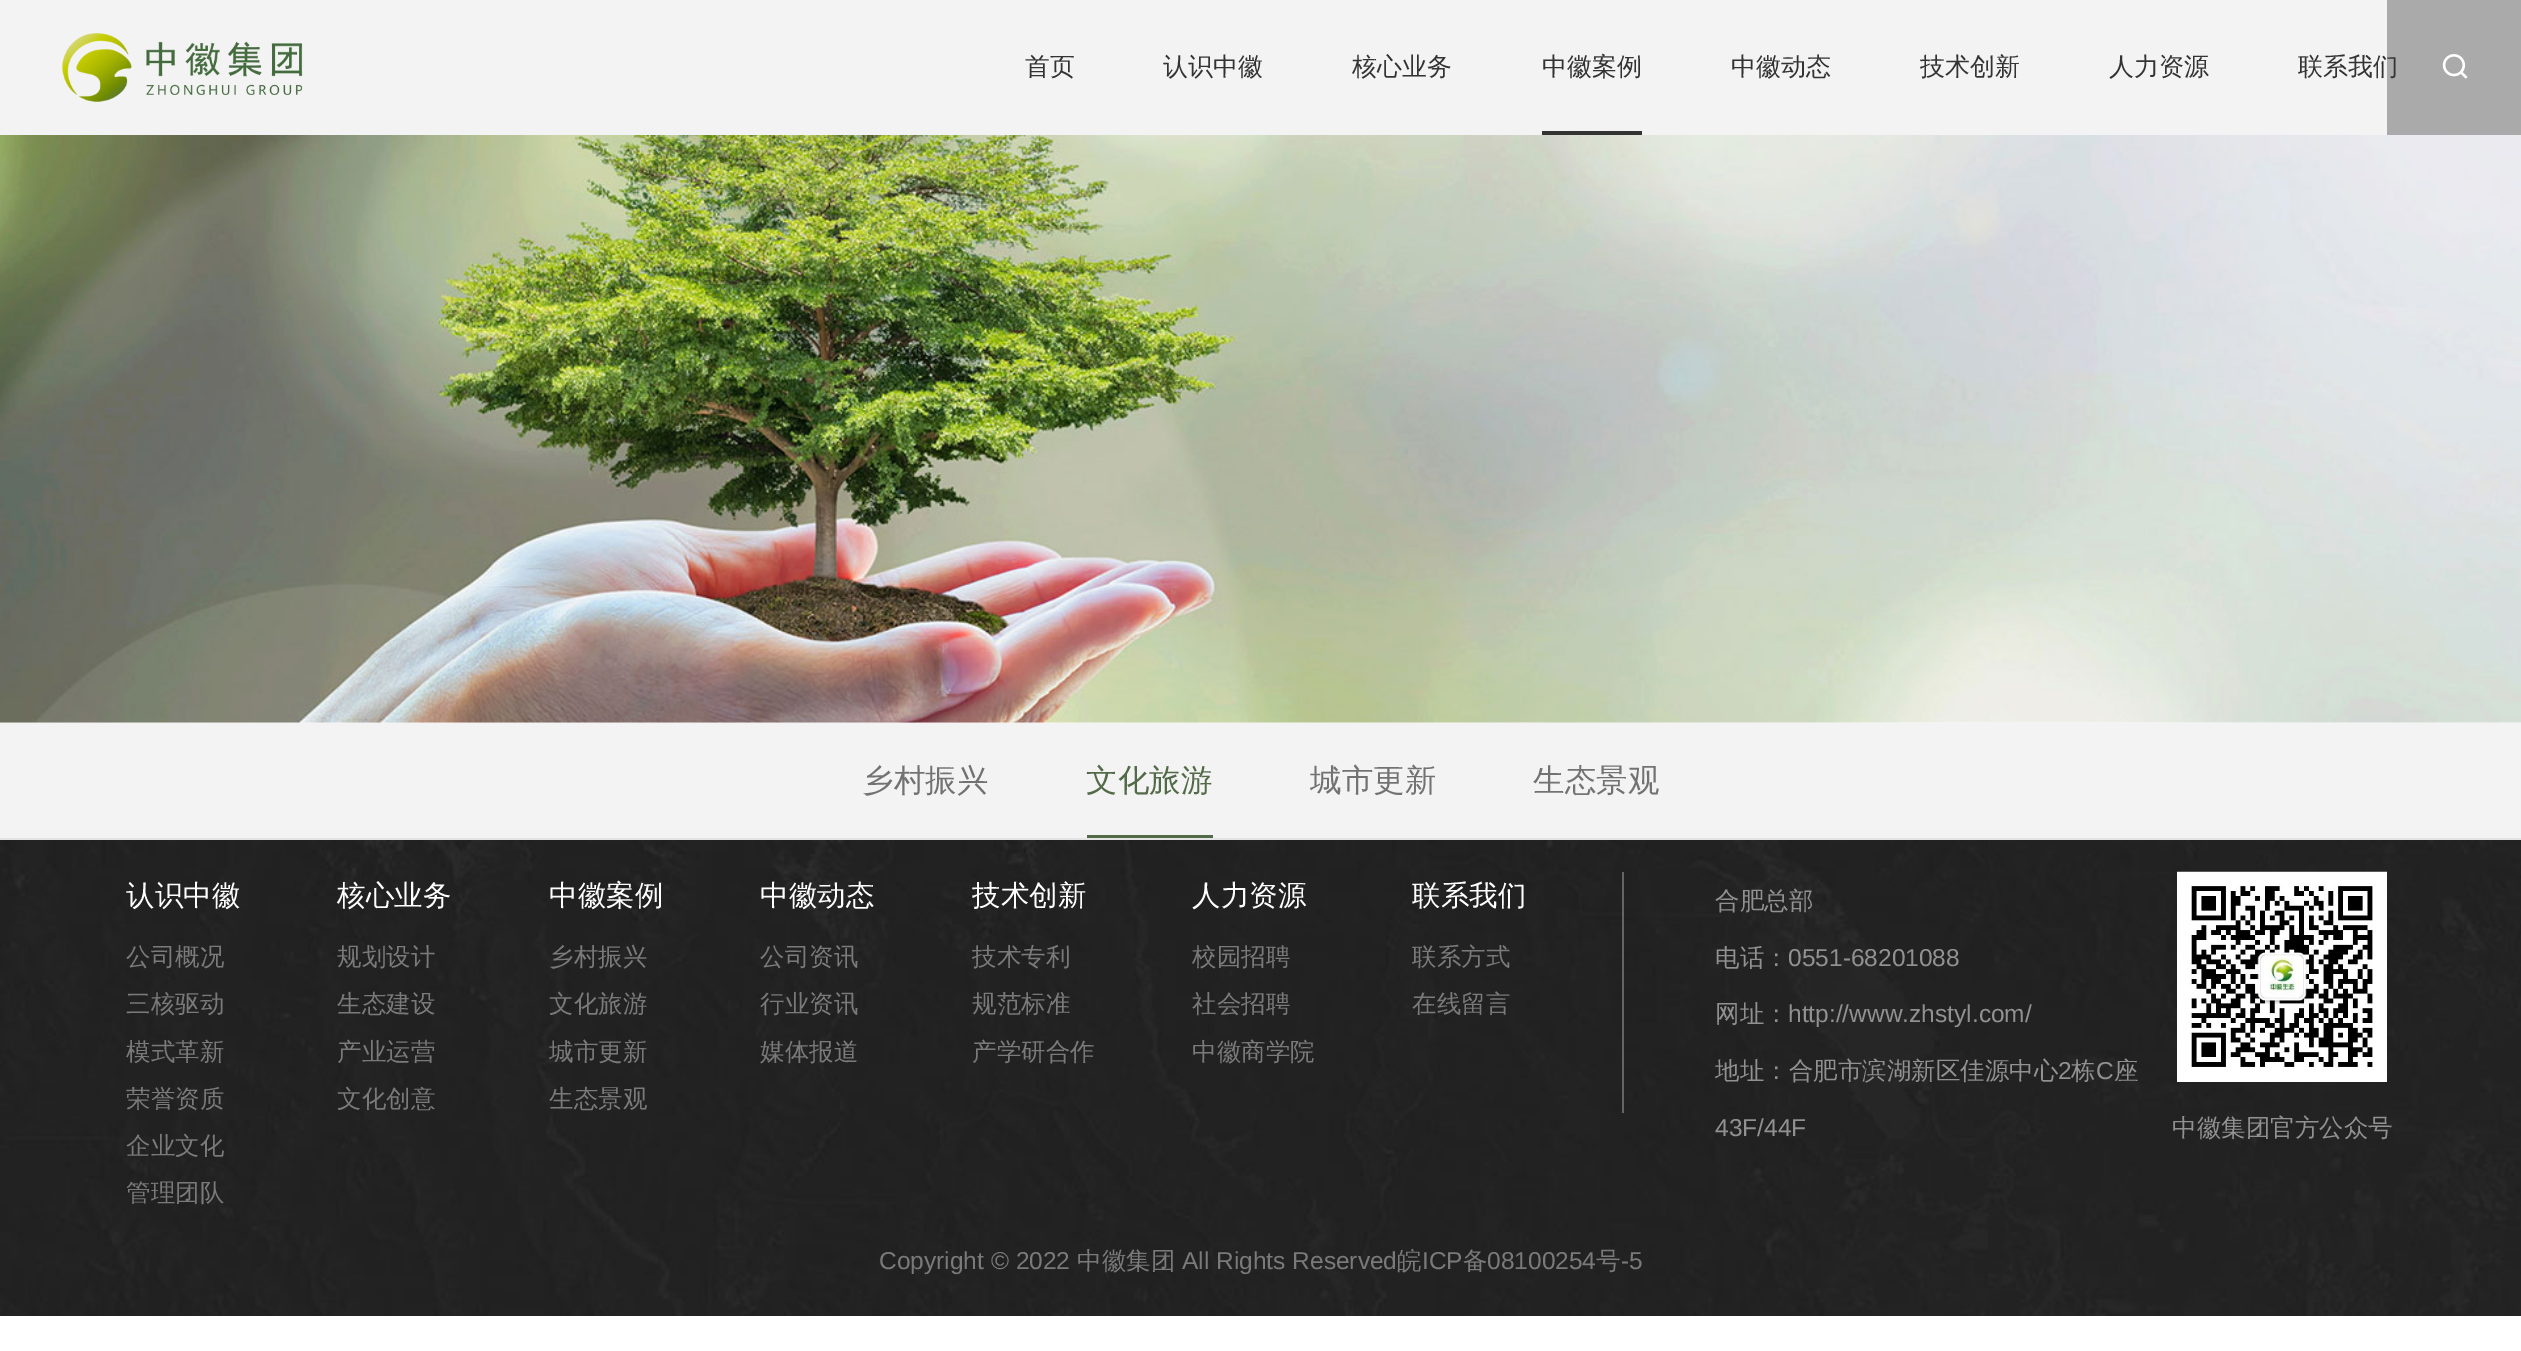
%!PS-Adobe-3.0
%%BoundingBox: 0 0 2521 1351
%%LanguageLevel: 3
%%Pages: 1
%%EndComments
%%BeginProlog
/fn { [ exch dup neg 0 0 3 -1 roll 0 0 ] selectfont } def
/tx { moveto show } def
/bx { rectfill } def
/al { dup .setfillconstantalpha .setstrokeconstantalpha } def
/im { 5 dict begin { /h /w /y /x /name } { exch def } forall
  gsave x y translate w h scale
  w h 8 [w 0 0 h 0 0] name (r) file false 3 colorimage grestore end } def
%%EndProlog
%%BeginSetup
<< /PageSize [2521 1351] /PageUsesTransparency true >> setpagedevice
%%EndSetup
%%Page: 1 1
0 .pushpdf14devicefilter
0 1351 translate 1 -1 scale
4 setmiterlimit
1 setgray
0 0 2521 1351 bx
0.953 setgray
0 0 2387 135 bx
(image0.raw) 62 33 241 69 im
/WenQuanYiZenHei-Medium 25 fn
0.2 setgray
(首页) 1025 75 tx
(认识中徽) 1163 75 tx
(核心业务) 1352 75 tx
(中徽案例) 1542 75 tx
1542 131 100 4 bx
(中徽动态) 1731 75 tx
(技术创新) 1920 75 tx
(人力资源) 2109 75 tx
0.667 setgray
2387 0 134 135 bx
0.2 setgray
(联系我们) 2298 75 tx
(image1.raw) 2442 54 26 25 im
(image2.raw) 0 135 2521 588 im
0.953 setgray
0 723 2521 115 bx
0.894 setgray
0 838 2521 2 bx
/WenQuanYiZenHei-Medium 31.5 fn
0.447 setgray
(乡村振兴) 862 791 tx
0.322 0.416 0.278 setrgbcolor
(文化旅游) 1086 791 tx
1087 835 126 3 bx
0.447 setgray
(城市更新) 1310 791 tx
(生态景观) 1533 791 tx
(image3.raw) 0 840 2521 476 im
/WenQuanYiZenHei-Medium 28.5 fn
1 setgray
(认识中徽) 126 905 tx
/WenQuanYiZenHei-Medium 24.5 fn
0.478 setgray
(公司概况) 126 965 tx
(三核驱动) 126 1012 tx
(模式革新) 126 1060 tx
(荣誉资质) 126 1107 tx
(企业文化) 126 1154 tx
(管理团队) 126 1201 tx
/WenQuanYiZenHei-Medium 28.5 fn
1 setgray
(核心业务) 337 905 tx
/WenQuanYiZenHei-Medium 24.5 fn
0.478 setgray
(规划设计) 337 965 tx
(生态建设) 337 1012 tx
(产业运营) 337 1060 tx
(文化创意) 337 1107 tx
/WenQuanYiZenHei-Medium 28.5 fn
1 setgray
(中徽案例) 549 905 tx
/WenQuanYiZenHei-Medium 24.5 fn
0.478 setgray
(乡村振兴) 549 965 tx
(文化旅游) 549 1012 tx
(城市更新) 549 1060 tx
(生态景观) 549 1107 tx
/WenQuanYiZenHei-Medium 28.5 fn
1 setgray
(中徽动态) 760 905 tx
/WenQuanYiZenHei-Medium 24.5 fn
0.478 setgray
(公司资讯) 760 965 tx
(行业资讯) 760 1012 tx
(媒体报道) 760 1060 tx
/WenQuanYiZenHei-Medium 28.5 fn
1 setgray
(技术创新) 972 905 tx
/WenQuanYiZenHei-Medium 24.5 fn
0.478 setgray
(技术专利) 972 965 tx
(规范标准) 972 1012 tx
(产学研合作) 972 1060 tx
/WenQuanYiZenHei-Medium 28.5 fn
1 setgray
(人力资源) 1192 905 tx
/WenQuanYiZenHei-Medium 24.5 fn
0.478 setgray
(校园招聘) 1192 965 tx
(社会招聘) 1192 1012 tx
(中徽商学院) 1192 1060 tx
/WenQuanYiZenHei-Medium 28.5 fn
1 setgray
(联系我们) 1412 905 tx
/WenQuanYiZenHei-Medium 24.5 fn
0.478 setgray
(联系方式) 1412 965 tx
(在线留言) 1412 1012 tx
0.3 al
1 setgray
1622 872 2 241 bx
1 al
0.569 setgray
(合肥总部) 1715 909 tx
(电话：) 1715 966 tx
/LiberationSans-Regular 24.5 fn
(0551-68201088) 1788 966 tx
/WenQuanYiZenHei-Medium 24.5 fn
(网址：) 1715 1022 tx
/LiberationSans-Regular 24.5 fn
(http://www.zhstyl.com/) 1788 1022 tx
/WenQuanYiZenHei-Medium 24.5 fn
(地址：合肥市滨湖新区佳源中心) 1715 1079 tx
/LiberationSans-Regular 24.5 fn
(2) 2058 1079 tx
/WenQuanYiZenHei-Medium 24.5 fn
(栋) 2071 1079 tx
/LiberationSans-Regular 24.5 fn
(C) 2096 1079 tx
/WenQuanYiZenHei-Medium 24.5 fn
(座) 2114 1079 tx
/LiberationSans-Regular 24.5 fn
(43F/44F) 1715 1136 tx
1 setgray
2177 1067 210 15 bx
(image4.raw) 2177 871 210 196 im
/WenQuanYiZenHei-Medium 24.5 fn
0.569 setgray
(中徽集团官方公众号) 2172 1136 tx
/LiberationSans-Regular 24.5 fn
0.478 setgray
(Copyright © 2022) 879 1269 tx
/WenQuanYiZenHei-Medium 24.5 fn
(中徽集团) 1077 1269 tx
/LiberationSans-Regular 24.5 fn
(All Rights Reserved) 1182 1269 tx
/WenQuanYiZenHei-Medium 24.5 fn
(皖) 1397 1269 tx
/LiberationSans-Regular 24.5 fn
(ICP) 1422 1269 tx
/WenQuanYiZenHei-Medium 24.5 fn
(备) 1463 1269 tx
/LiberationSans-Regular 24.5 fn
(08100254) 1487 1269 tx
/WenQuanYiZenHei-Medium 24.5 fn
(号) 1596 1269 tx
/LiberationSans-Regular 24.5 fn
(-5) 1621 1269 tx
.poppdf14devicefilter showpage
%%EOF
